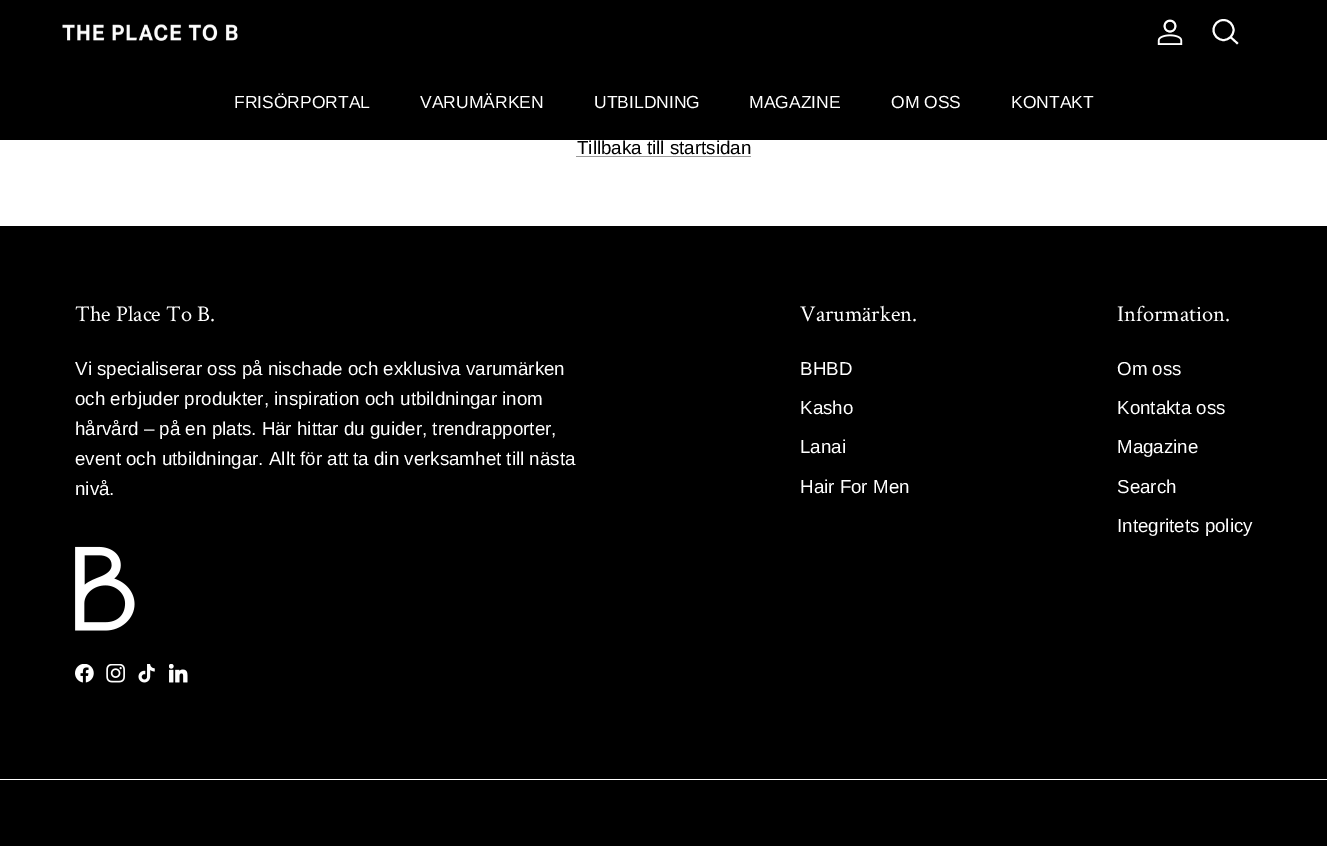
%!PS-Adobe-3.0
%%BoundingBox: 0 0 1327 846
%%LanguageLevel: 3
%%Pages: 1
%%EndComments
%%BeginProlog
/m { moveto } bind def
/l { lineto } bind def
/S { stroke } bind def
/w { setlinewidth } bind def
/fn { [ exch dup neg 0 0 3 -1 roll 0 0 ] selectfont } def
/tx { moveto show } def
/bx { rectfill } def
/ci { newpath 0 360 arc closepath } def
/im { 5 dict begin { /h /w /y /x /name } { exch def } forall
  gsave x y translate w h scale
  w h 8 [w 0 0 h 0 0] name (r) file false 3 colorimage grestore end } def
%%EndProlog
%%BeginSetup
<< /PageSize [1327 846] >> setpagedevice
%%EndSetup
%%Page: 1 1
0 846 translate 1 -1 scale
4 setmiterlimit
1 setgray
0 0 1327 846 bx
0 setgray
0 0 1327 140 bx
(image0.raw) 62 24 176 17 im
(image1.raw) 1157 19 26 26 im
1 setgray
1.9 w
1223.5 30 10 ci S
2 setlinecap
1231 37.5 m 1237 43 l S
/LiberationSans-Regular 17.5 fn
(FRISÖRPORTAL) 234 108 tx
(VARUMÄRKEN) 420 108 tx
(UTBILDNING) 594 108 tx
(MAGAZINE) 749 108 tx
(OM OSS) 891 108 tx
(KONTAKT) 1011 108 tx
/LiberationSans-Regular 18.75 fn
0 setgray
(Tillbaka till startsidan) 577 154 tx
0.6 setgray
576 156 175 1 bx
0 setgray
0 226 1327 620 bx
/CrimsonText-Regular 22.5 fn
1 setgray
(The Place To B.) 75 321 tx
/LiberationSans-Regular 18.75 fn
(Vi specialiserar oss på nischade och exklusiva varumärken) 75 375 tx
(och erbjuder produkter, inspiration och utbildningar inom) 75 405 tx
(hårvård – på en plats. Här hittar du guider, trendrapporter,) 75 435 tx
(event och utbildningar. Allt för att ta din verksamhet till nästa) 75 465 tx
(nivå.) 75 495 tx
(image2.raw) 75 546 60 85 im
(image3.raw) 75 664 19 19 im
(image4.raw) 106 664 19 19 im
(image5.raw) 138 664 17 19 im
(image6.raw) 169 664 19 19 im
/CrimsonText-Regular 22.5 fn
(Varumärken.) 800 321 tx
/LiberationSans-Regular 18.75 fn
(BHBD) 800 375 tx
(Kasho) 800 414 tx
(Lanai) 800 453 tx
(Hair For Men) 800 493 tx
/CrimsonText-Regular 22.5 fn
(Information.) 1117 321 tx
/LiberationSans-Regular 18.75 fn
(Om oss) 1117 375 tx
(Kontakta oss) 1117 414 tx
(Magazine) 1117 453 tx
(Search) 1117 493 tx
(Integritets policy) 1117 532 tx
0 779 1327 1 bx
showpage
%%EOF
